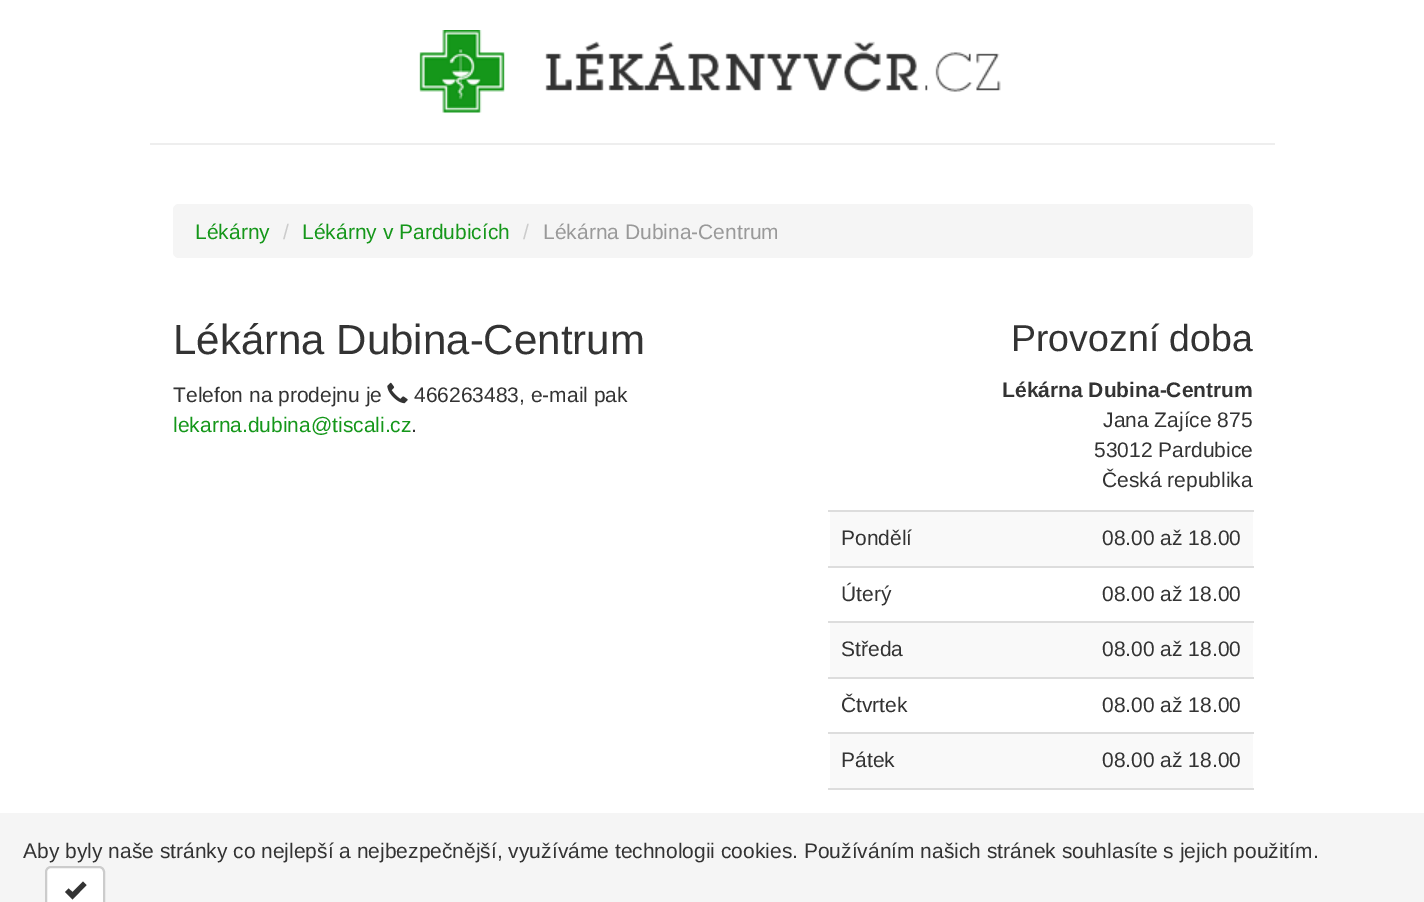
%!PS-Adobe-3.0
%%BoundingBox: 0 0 1424 902
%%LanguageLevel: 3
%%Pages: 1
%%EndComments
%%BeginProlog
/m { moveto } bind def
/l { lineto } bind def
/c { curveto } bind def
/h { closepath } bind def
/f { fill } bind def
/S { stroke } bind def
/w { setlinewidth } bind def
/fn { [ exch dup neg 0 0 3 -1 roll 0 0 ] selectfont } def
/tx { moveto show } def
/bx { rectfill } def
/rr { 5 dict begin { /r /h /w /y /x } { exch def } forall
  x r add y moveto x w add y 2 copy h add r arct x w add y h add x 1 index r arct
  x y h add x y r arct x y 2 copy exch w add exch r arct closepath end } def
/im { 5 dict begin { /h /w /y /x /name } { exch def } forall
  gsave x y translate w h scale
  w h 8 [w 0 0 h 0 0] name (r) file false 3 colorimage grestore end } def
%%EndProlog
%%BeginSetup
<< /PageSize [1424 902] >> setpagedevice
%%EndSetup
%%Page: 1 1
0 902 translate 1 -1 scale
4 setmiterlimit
1 setgray
0 0 1424 902 bx
(image0.raw) 419 30 582 83 im
0.933 setgray
150 143 1125 2 bx
0.961 setgray
173 204 1080 54 6 rr f
/LiberationSans-Regular 21 fn
0.082 0.592 0.102 setrgbcolor
(Lékárny) 195 239 tx
0.8 setgray
(/) 283 239 tx
0.082 0.592 0.102 setrgbcolor
(Lékárny v Pardubicích) 302 239 tx
0.8 setgray
(/) 523 239 tx
0.6 setgray
(Lékárna Dubina-Centrum) 543 239 tx
/LiberationSans-Regular 42 fn
0.2 setgray
(Lékárna Dubina-Centrum) 173 354 tx
/LiberationSans-Regular 21 fn
(Telefon na prodejnu je) 173 402 tx
(image1.raw) 387 382 21 22 im
(466263483, e-mail pak) 414 402 tx
0.082 0.592 0.102 setrgbcolor
(lekarna.dubina@tiscali.cz) 173 432 tx
0.2 setgray
(.) 411 432 tx
/LiberationSans-Regular 37.5 fn
(Provozní doba) 1011 351 tx
/LiberationSans-Bold 21 fn
(Lékárna Dubina-Centrum) 1002 397 tx
/LiberationSans-Regular 21 fn
(Jana Zajíce 875) 1103 427 tx
(53012 Pardubice) 1094 457 tx
(Česká republika) 1102 487 tx
0.976 setgray
830 512 423 54 bx
0.2 setgray
(Pondělí) 841 545 tx
0.867 setgray
828 510 426 2 bx
0.2 setgray
(08.00 až 18.00) 1102 545 tx
(Úterý) 841 601 tx
0.867 setgray
828 566 426 2 bx
0.2 setgray
(08.00 až 18.00) 1102 601 tx
0.976 setgray
830 623 423 54 bx
0.2 setgray
(Středa) 841 656 tx
0.867 setgray
828 621 426 2 bx
0.2 setgray
(08.00 až 18.00) 1102 656 tx
(Čtvrtek) 841 712 tx
0.867 setgray
828 677 426 2 bx
0.2 setgray
(08.00 až 18.00) 1102 712 tx
0.976 setgray
830 734 423 54 bx
0.2 setgray
(Pátek) 841 767 tx
0.867 setgray
828 732 426 2 bx
0.2 setgray
(08.00 až 18.00) 1102 767 tx
0.867 setgray
828 788 426 2 bx
0.961 setgray
0 813 1424 89 bx
0.2 setgray
(Aby byly naše stránky co nejlepší a nejbezpečnější, využíváme technologii cookies. Používáním našich stránek souhlasíte s jejich použitím.) 23 858 tx
1 setgray
51 866 m 99 866 l 102.5 866 105 868.5 105 872 c 105 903 l 45 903 l 45 872 l 45 868.5 47.5 866 51 866 c h f
0.8 setgray
2 w
46 867 58 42 5 rr S
0.2 setgray
65 892 m 72.5 899.5 l 86.5 885 l 83 881.5 l 72.5 892 l 68.5 888.5 l h f
showpage
%%EOF
